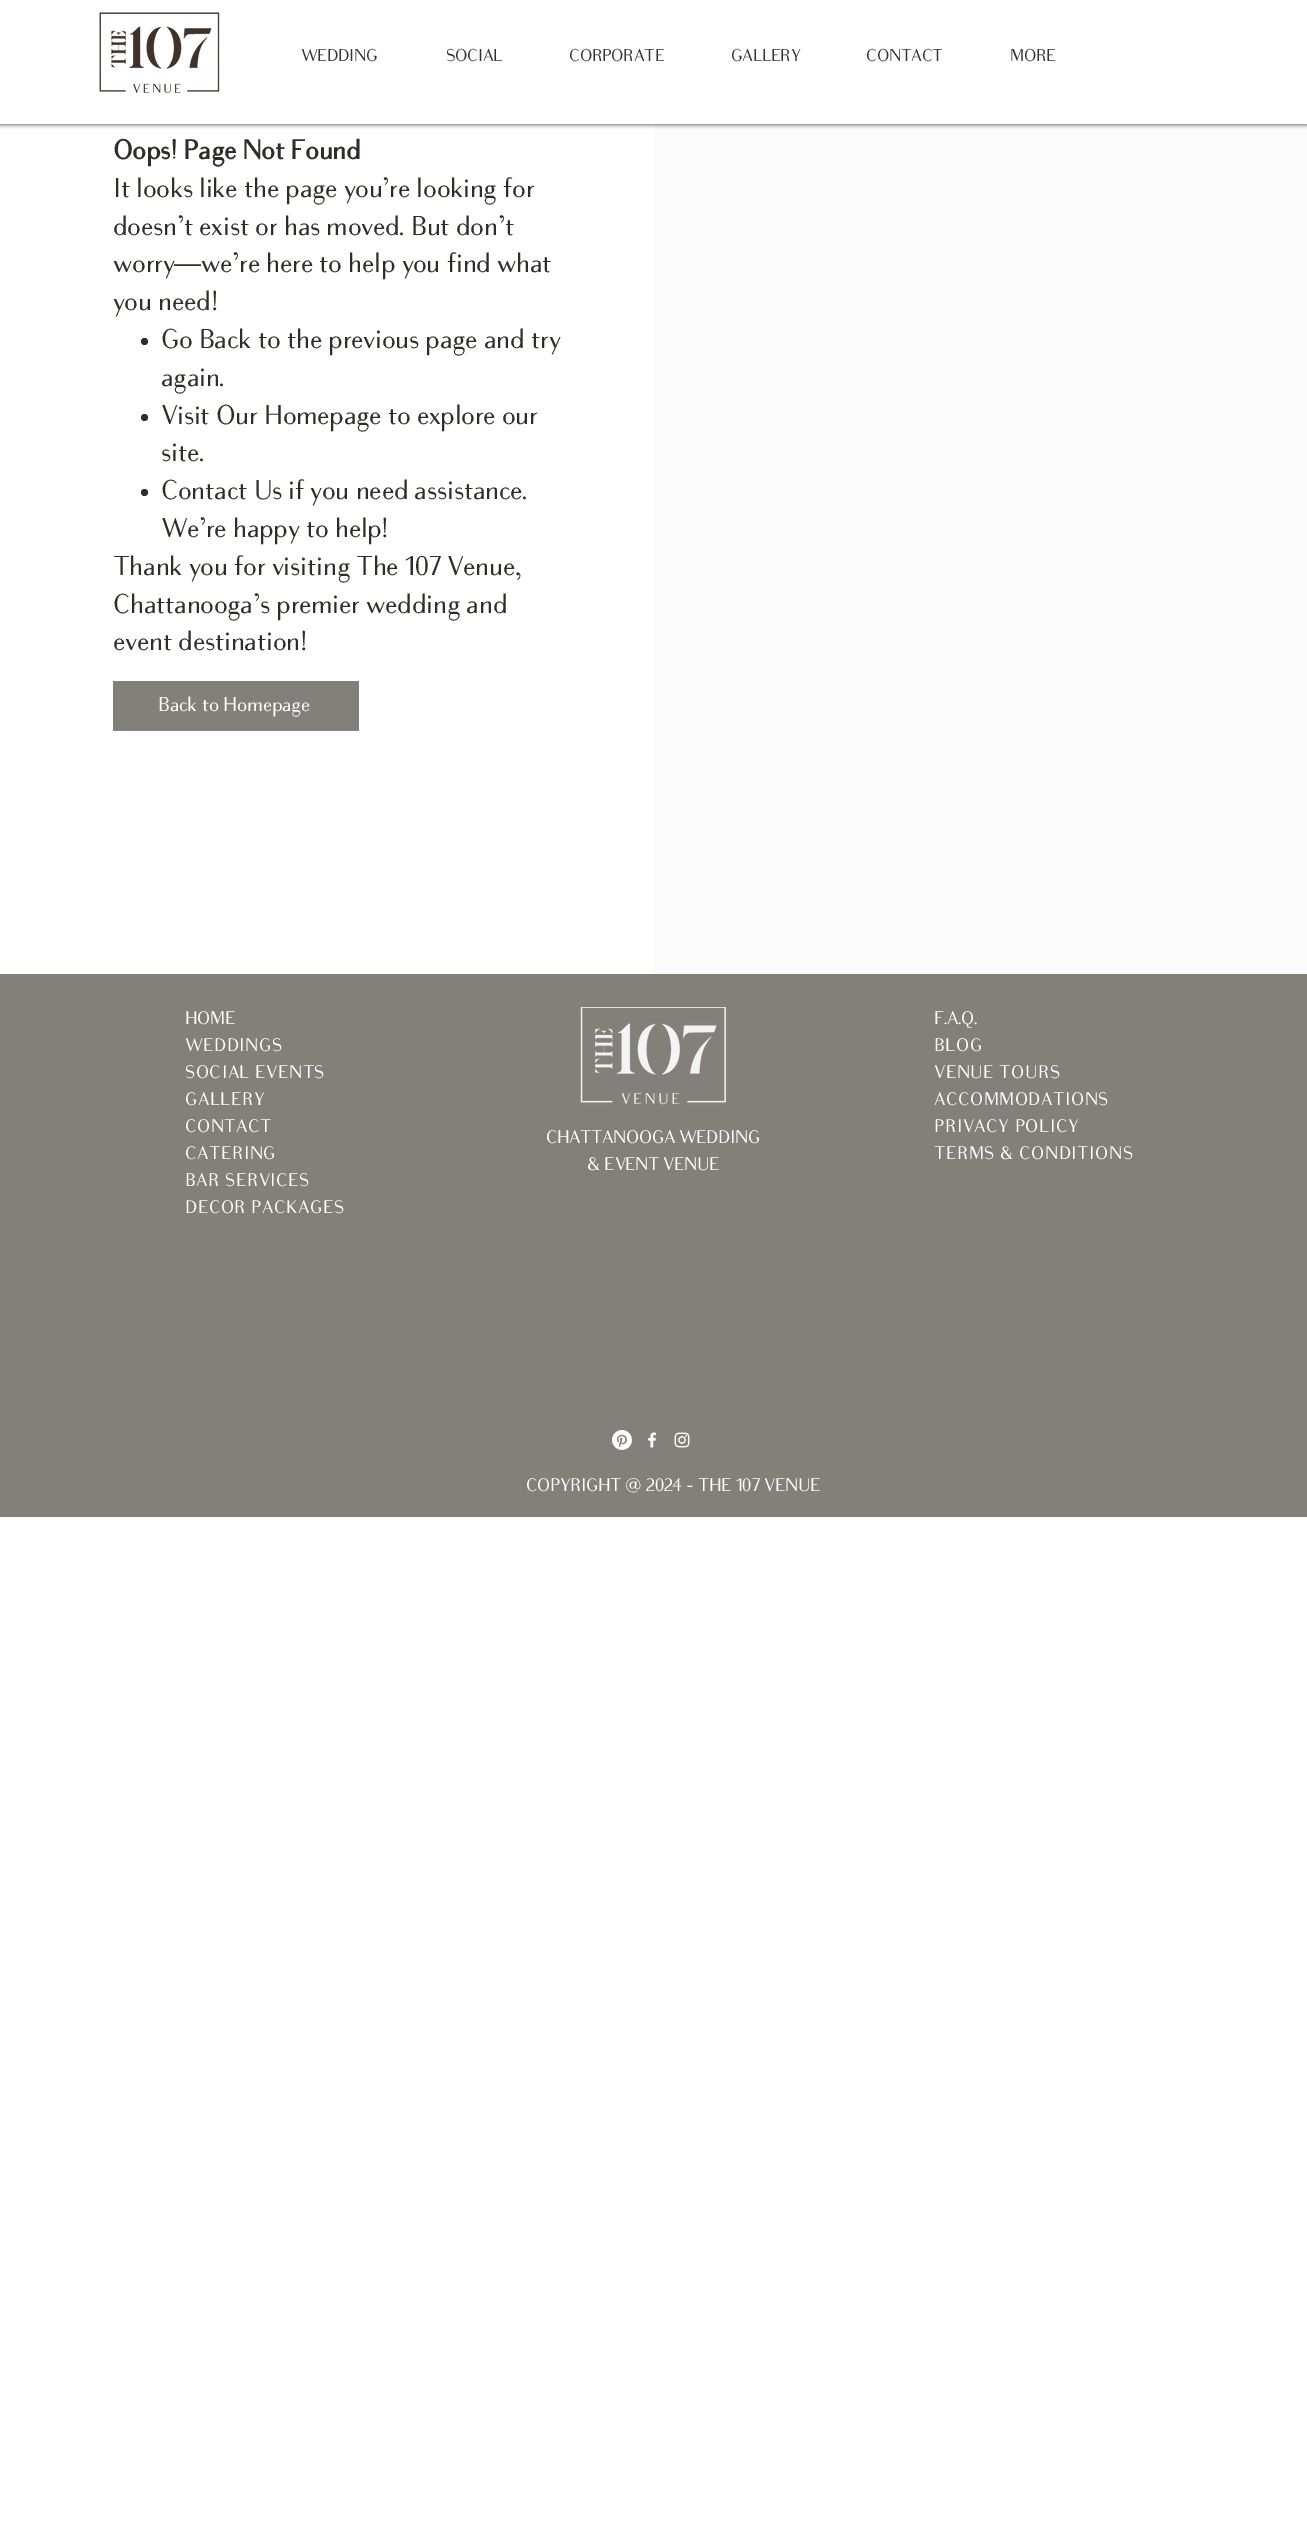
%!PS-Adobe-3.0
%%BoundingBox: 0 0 1307 2533
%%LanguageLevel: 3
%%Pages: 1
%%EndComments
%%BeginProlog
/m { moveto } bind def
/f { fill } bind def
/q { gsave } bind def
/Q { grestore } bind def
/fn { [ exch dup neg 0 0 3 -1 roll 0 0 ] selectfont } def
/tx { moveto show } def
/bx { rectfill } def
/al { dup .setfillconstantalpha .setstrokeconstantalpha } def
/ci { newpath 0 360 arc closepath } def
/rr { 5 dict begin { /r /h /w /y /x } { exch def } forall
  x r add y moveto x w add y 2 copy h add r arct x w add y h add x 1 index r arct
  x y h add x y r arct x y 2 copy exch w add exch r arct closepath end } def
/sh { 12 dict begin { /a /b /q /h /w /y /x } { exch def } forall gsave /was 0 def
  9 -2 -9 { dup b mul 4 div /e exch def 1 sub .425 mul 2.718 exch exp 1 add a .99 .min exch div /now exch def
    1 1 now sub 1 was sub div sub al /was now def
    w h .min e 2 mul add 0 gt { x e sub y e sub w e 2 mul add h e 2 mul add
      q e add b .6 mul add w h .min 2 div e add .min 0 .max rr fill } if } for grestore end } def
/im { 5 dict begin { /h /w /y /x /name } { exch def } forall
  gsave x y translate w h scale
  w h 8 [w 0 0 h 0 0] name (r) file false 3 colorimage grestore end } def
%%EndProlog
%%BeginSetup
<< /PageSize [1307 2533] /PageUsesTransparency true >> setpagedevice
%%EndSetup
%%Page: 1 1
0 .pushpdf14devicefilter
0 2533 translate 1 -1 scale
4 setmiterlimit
1 setgray
0 0 1307 2533 bx
0.984 setgray
654 124 653 850 bx
q
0 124 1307 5 rectclip
0 setgray
0 1 1307 124 0 2 0.6 sh
Q
(image0.raw) 99 12 121 81 im
/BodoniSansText-Regular 17 fn
0.2 setgray
(WEDDING) 301 61 tx
(SOCIAL) 446 61 tx
(CORPORATE) 569 61 tx
(GALLERY) 731 61 tx
(CONTACT) 866 61 tx
(MORE) 1010 61 tx
/BodoniSansText-Bold 27 fn
0.188 0.176 0.149 setrgbcolor
(Oops! Page Not Found) 113 159 tx
/BodoniSansText-Regular 27 fn
(It looks like the page you’re looking for) 113 197 tx
(doesn’t exist or has moved. But don’t) 113 235 tx
(worry—we’re here to help you find what) 113 272 tx
(you need!) 113 310 tx
144.5 341.5 3.5 ci f
(Go Back to the previous page and try) 161 348 tx
(again.) 161 386 tx
144.5 417.5 3.5 ci f
(Visit Our Homepage to explore our) 161 424 tx
(site.) 161 461 tx
144.5 492.5 3.5 ci f
(Contact Us if you need assistance.) 161 499 tx
(We’re happy to help!) 161 537 tx
(Thank you for visiting The 107 Venue,) 113 575 tx
(Chattanooga’s premier wedding and) 113 613 tx
(event destination!) 113 650 tx
0.514 0.502 0.478 setrgbcolor
113 681 246 50 bx
/BodoniSansText-Regular 20 fn
1 setgray
(Back to Homepage) 158 711 tx
0.514 0.502 0.478 setrgbcolor
0 974 1307 543 bx
/BodoniSansText-Regular 18 fn
1 setgray
(HOME) 185 1024 tx
185 1051 m 0.9 0 (WEDDINGS) ashow
185 1078 m 0.9 0 (SOCIAL EVENTS) ashow
185 1105 m 0.9 0 (GALLERY) ashow
185 1132 m 0.9 0 (CONTACT) ashow
185 1159 m 0.9 0 (CATERING) ashow
185 1186 m 0.9 0 (BAR SERVICES) ashow
185 1213 m 0.9 0 (DECOR PACKAGES) ashow
(image1.raw) 580 1007 146 98 im
(F.A.Q.) 934 1024 tx
934 1051 m 0.9 0 (BLOG) ashow
934 1078 m 0.9 0 (VENUE TOURS) ashow
934 1105 m 0.9 0 (ACCOMMODATIONS) ashow
934 1132 m 0.9 0 (PRIVACY POLICY) ashow
934 1159 m 0.9 0 (TERMS & CONDITIONS) ashow
(CHATTANOOGA WEDDING) 546 1143 tx
(& EVENT VENUE) 587 1170 tx
(image2.raw) 612 1430 20 20 im
(image3.raw) 648 1432 9 16 im
(image4.raw) 674 1432 16 16 im
(COPYRIGHT @ 2024 - THE 107 VENUE) 526 1491 tx
.poppdf14devicefilter showpage
%%EOF
